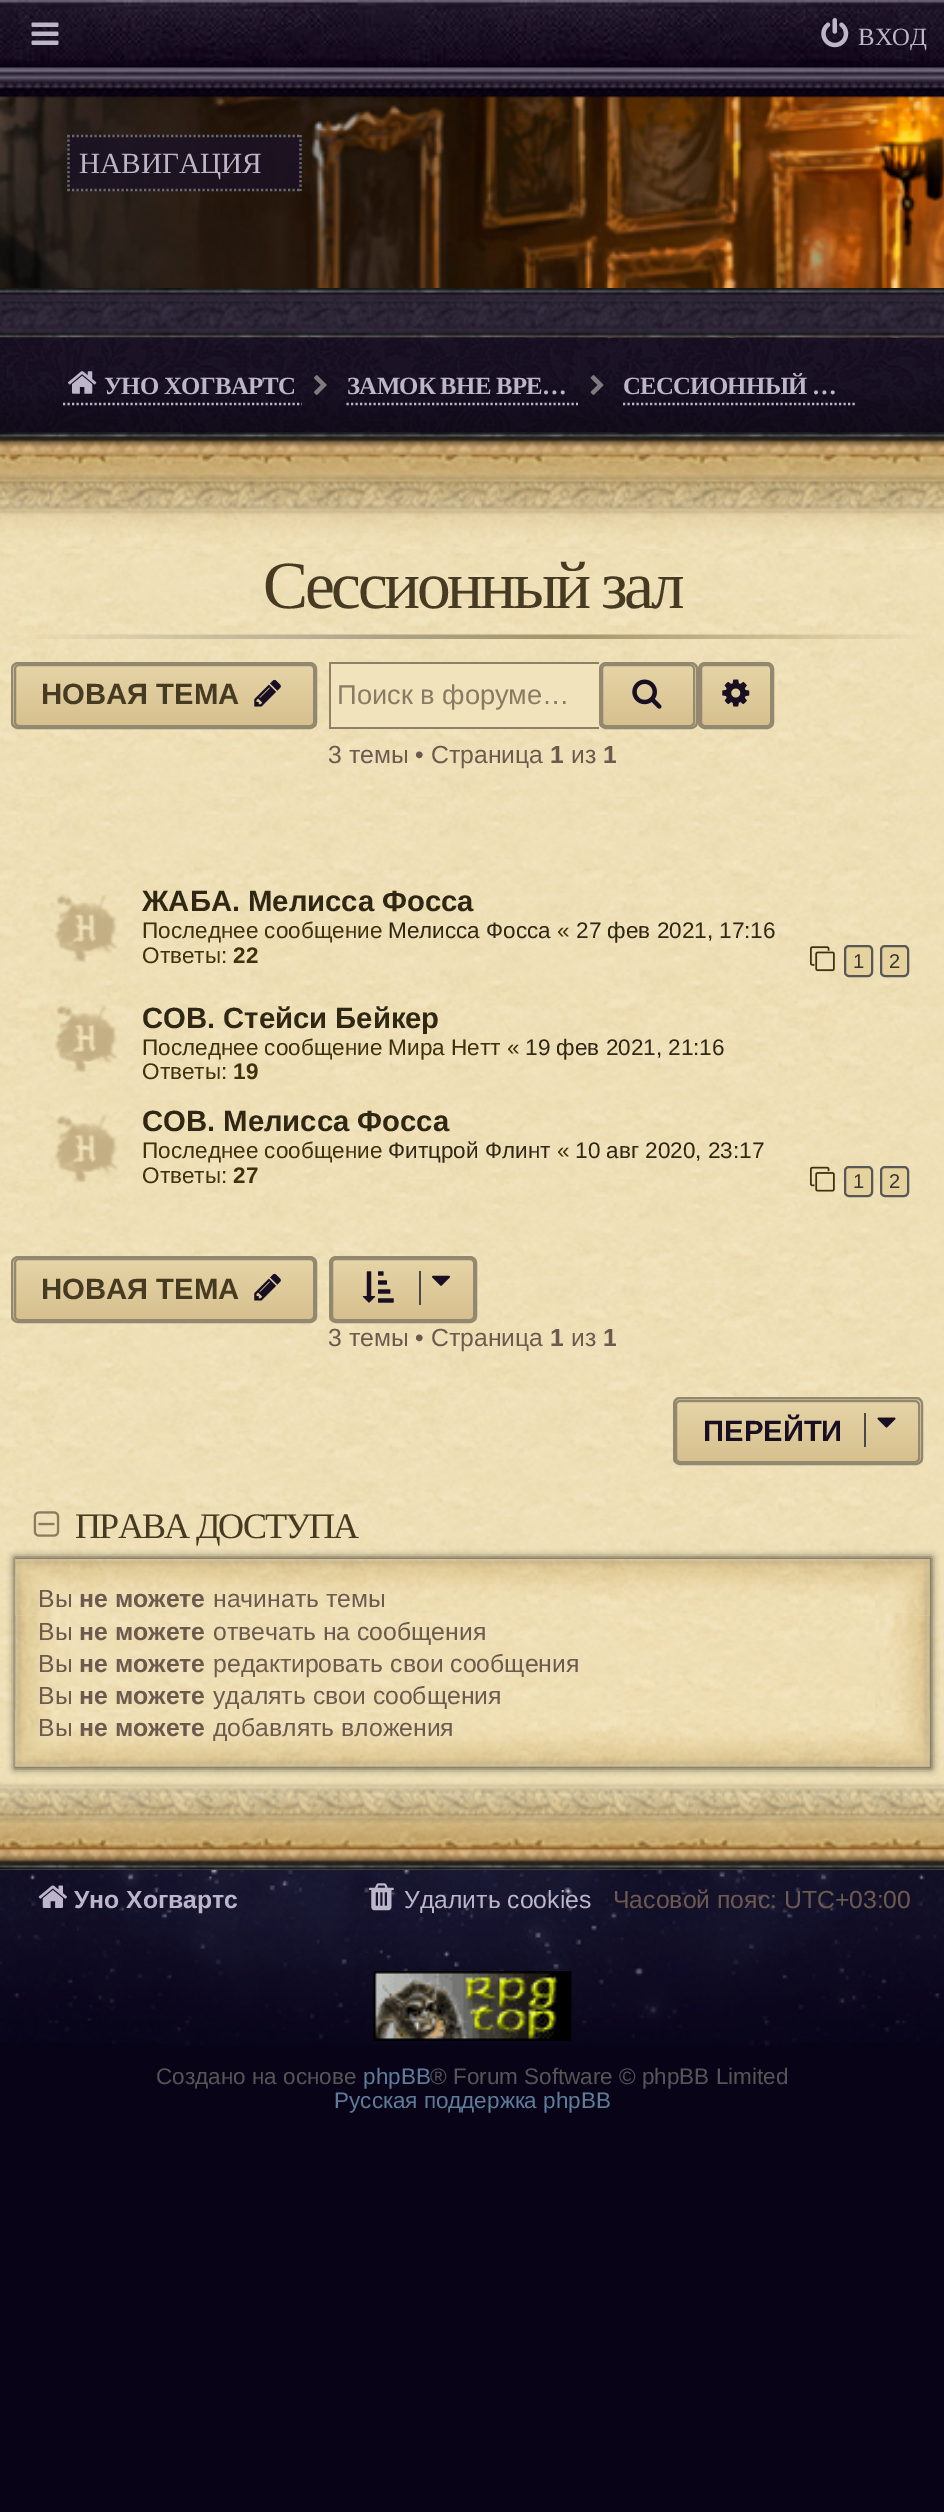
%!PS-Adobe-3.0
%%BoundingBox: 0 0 944 2512
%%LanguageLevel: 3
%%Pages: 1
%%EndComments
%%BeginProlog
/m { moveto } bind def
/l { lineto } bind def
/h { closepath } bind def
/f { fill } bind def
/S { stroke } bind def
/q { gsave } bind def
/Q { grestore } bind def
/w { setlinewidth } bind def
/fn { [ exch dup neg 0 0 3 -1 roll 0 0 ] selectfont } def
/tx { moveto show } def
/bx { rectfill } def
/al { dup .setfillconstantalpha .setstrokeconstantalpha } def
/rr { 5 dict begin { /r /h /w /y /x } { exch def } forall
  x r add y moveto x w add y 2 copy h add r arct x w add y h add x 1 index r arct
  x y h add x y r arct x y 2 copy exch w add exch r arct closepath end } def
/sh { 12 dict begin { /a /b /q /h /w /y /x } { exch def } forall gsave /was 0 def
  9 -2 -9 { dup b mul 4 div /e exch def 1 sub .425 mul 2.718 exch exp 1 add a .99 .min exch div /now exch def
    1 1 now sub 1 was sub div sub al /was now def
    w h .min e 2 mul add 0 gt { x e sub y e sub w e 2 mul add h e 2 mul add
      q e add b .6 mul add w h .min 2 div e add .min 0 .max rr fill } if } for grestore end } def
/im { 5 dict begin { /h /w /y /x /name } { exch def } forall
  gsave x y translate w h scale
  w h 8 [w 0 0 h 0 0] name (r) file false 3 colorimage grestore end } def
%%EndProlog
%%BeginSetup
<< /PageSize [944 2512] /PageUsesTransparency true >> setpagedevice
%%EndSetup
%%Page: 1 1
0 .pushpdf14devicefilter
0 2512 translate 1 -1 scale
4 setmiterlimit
0.031 0.012 0.09 setrgbcolor
0 0 944 2512 bx
(image0.raw) 0 0 944 2046 im
(image1.raw) 31 22 28 23 im
(image2.raw) 821 18 28 30 im
/LiberationSerif-Regular 24.75 fn
0.741 0.71 0.792 setrgbcolor
(ВХОД) 858 45 tx
0.8 al
0.102 0.067 0.141 setrgbcolor
68 135 234 56 bx
1 al
0.42 0.416 0.42 setrgbcolor
2.2 w
[2.25 2.25] 0 setdash
67.5 136 m 301.5 136 l S
300.5 135 m 300.5 191 l S
67.5 190 m 301.5 190 l S
68.5 135 m 68.5 191 l S
/LiberationSerif-Regular 29.25 fn
0.741 0.71 0.792 setrgbcolor
(НАВИГАЦИЯ) 79 173 tx
(image3.raw) 0 288 944 50 im
(image4.raw) 0 337 944 95 im
(image5.raw) 68 371 29 23 im
/LiberationSerif-Bold 24.75 fn
104 394 m -0.7 0 (УНО ХОГВАРТС) ashow
q
56 349 246 72 rectclip
63 404 m 308 404 l S
Q
(image6.raw) 314 375 13 20 im
347 394 m -0.7 0 (ЗАМОК ВНЕ ВРЕ…) ashow
q
340 349 238 72 rectclip
346.5 404 m 585 404 l S
Q
(image7.raw) 590 375 14 20 im
623 394 m -0.7 0 (СЕССИОННЫЙ …) ashow
q
617 349 238 72 rectclip
623 404 m 862 404 l S
Q
(image8.raw) 0 432 944 1438 im
(image9.raw) 27 634 894 5 im
/LiberationSerif-Regular 67.5 fn
0.275 0.231 0.133 setrgbcolor
263 608 m -3.4 0 (Сессионный зал) ashow
q
11 662 306 67 7 rr clip newpath
q 11 664 m 317 664 l 317 727 l 11 727 l h clip newpath
<< /ShadingType 2 /ColorSpace /DeviceRGB /Coords [164 664 164 727] /Extend [true true] /Function << /FunctionType 2 /Domain [0 1] /C0 [0.902 0.835 0.655] /C1 [0.839 0.749 0.553] /N 1 >> >> shfill Q
Q
0.576 0.533 0.443 setrgbcolor
2 w
[] 0 setdash
15 665 299 61 4 rr S
0.569 0.533 0.431 setrgbcolor
12 663 304 65 6 rr S
/LiberationSans-Bold 29.25 fn
0.275 0.231 0.133 setrgbcolor
(НОВАЯ ТЕМА) 41 704 tx
(image10.raw) 254 679 27 28 im
0.945 0.89 0.737 setrgbcolor
331 664 268 63 bx
0.553 0.502 0.396 setrgbcolor
329 662 270 2 bx
329 727 270 2 bx
329 662 2 67 bx
/LiberationSans-Regular 27.25 fn
0.533 0.482 0.388 setrgbcolor
(Поиск в форуме…) 337 704 tx
q
599 662 99 67 7 rr clip newpath
q 599 664 m 698 664 l 698 727 l 599 727 l h clip newpath
<< /ShadingType 2 /ColorSpace /DeviceRGB /Coords [648 664 648 727] /Extend [true true] /Function << /FunctionType 2 /Domain [0 1] /C0 [0.902 0.835 0.655] /C1 [0.839 0.749 0.553] /N 1 >> >> shfill Q
Q
0.576 0.533 0.443 setrgbcolor
602 665 92 61 4 rr S
0.569 0.533 0.431 setrgbcolor
600 663 97 65 6 rr S
(image11.raw) 632 679 30 30 im
q
698 662 76 67 7 rr clip newpath
q 698 664 m 774 664 l 774 727 l 698 727 l h clip newpath
<< /ShadingType 2 /ColorSpace /DeviceRGB /Coords [736 664 736 727] /Extend [true true] /Function << /FunctionType 2 /Domain [0 1] /C0 [0.902 0.835 0.655] /C1 [0.839 0.749 0.553] /N 1 >> >> shfill Q
Q
0.576 0.533 0.443 setrgbcolor
701 665 70 61 4 rr S
0.569 0.533 0.431 setrgbcolor
699 663 74 65 6 rr S
(image12.raw) 722 679 28 28 im
/LiberationSans-Regular 24.75 fn
0.42 0.353 0.302 setrgbcolor
(3 темы • Страница) 328 763 tx
/LiberationSans-Bold 24.75 fn
(1) 550 763 tx
/LiberationSans-Regular 24.75 fn
(из) 571 763 tx
/LiberationSans-Bold 24.75 fn
(1) 603 763 tx
(image13.raw) 49 894 69 70 im
/LiberationSans-Bold 29.25 fn
0.184 0.153 0.078 setrgbcolor
(ЖАБА. Мелисса Фосса) 142 911 tx
/LiberationSans-Regular 22.5 fn
0.243 0.192 0.051 setrgbcolor
(Последнее сообщение) 142 938 tx
0.184 0.153 0.078 setrgbcolor
(Мелисса Фосса) 388 938 tx
0.243 0.192 0.051 setrgbcolor
(«) 557 938 tx
0.184 0.153 0.078 setrgbcolor
(27 фев 2021, 17:16) 576 938 tx
0.243 0.192 0.051 setrgbcolor
(Ответы:) 142 963 tx
/LiberationSans-Bold 22.5 fn
(22) 233 963 tx
(image14.raw) 810 946 25 26 im
0.902 0.824 0.616 setrgbcolor
845 946 27 30 4 rr q f Q
0.341 setgray
S
/LiberationSans-Regular 20 fn
0.208 0.2 0.2 setrgbcolor
(1) 853 968 tx
0.902 0.824 0.616 setrgbcolor
881 946 27 30 4 rr q f Q
0.341 setgray
S
0.208 0.2 0.2 setrgbcolor
(2) 889 968 tx
(image15.raw) 49 1004 69 70 im
/LiberationSans-Bold 29.25 fn
0.184 0.153 0.078 setrgbcolor
(СОВ. Стейси Бейкер) 142 1028 tx
/LiberationSans-Regular 22.5 fn
0.243 0.192 0.051 setrgbcolor
(Последнее сообщение Мира Нетт «) 142 1055 tx
0.184 0.153 0.078 setrgbcolor
(19 фев 2021, 21:16) 525 1055 tx
0.243 0.192 0.051 setrgbcolor
(Ответы:) 142 1079 tx
/LiberationSans-Bold 22.5 fn
(19) 233 1079 tx
(image16.raw) 49 1114 69 71 im
/LiberationSans-Bold 29.25 fn
0.184 0.153 0.078 setrgbcolor
(СОВ. Мелисса Фосса) 142 1131 tx
/LiberationSans-Regular 22.5 fn
0.243 0.192 0.051 setrgbcolor
(Последнее сообщение) 142 1158 tx
0.184 0.153 0.078 setrgbcolor
(Фитцрой Флинт) 388 1158 tx
0.243 0.192 0.051 setrgbcolor
(«) 557 1158 tx
0.184 0.153 0.078 setrgbcolor
(10 авг 2020, 23:17) 575 1158 tx
0.243 0.192 0.051 setrgbcolor
(Ответы:) 142 1183 tx
/LiberationSans-Bold 22.5 fn
(27) 233 1183 tx
(image17.raw) 810 1166 25 26 im
0.902 0.824 0.616 setrgbcolor
845 1167 27 29 4 rr q f Q
0.341 setgray
S
/LiberationSans-Regular 20 fn
0.208 0.2 0.2 setrgbcolor
(1) 853 1188 tx
0.902 0.824 0.616 setrgbcolor
881 1167 27 29 4 rr q f Q
0.341 setgray
S
0.208 0.2 0.2 setrgbcolor
(2) 889 1188 tx
q
11 1256 306 67 7 rr clip newpath
q 11 1258 m 317 1258 l 317 1321 l 11 1321 l h clip newpath
<< /ShadingType 2 /ColorSpace /DeviceRGB /Coords [164 1258 164 1321] /Extend [true true] /Function << /FunctionType 2 /Domain [0 1] /C0 [0.902 0.835 0.655] /C1 [0.839 0.749 0.553] /N 1 >> >> shfill Q
Q
0.576 0.533 0.443 setrgbcolor
15 1259 299 61 4 rr S
0.569 0.533 0.431 setrgbcolor
12 1257 304 65 6 rr S
/LiberationSans-Bold 29.25 fn
0.275 0.231 0.133 setrgbcolor
(НОВАЯ ТЕМА) 41 1299 tx
(image10.raw) 254 1273 27 28 im
q
329 1256 148 67 7 rr clip newpath
q 329 1258 m 477 1258 l 477 1321 l 329 1321 l h clip newpath
<< /ShadingType 2 /ColorSpace /DeviceRGB /Coords [403 1258 403 1321] /Extend [true true] /Function << /FunctionType 2 /Domain [0 1] /C0 [0.902 0.835 0.655] /C1 [0.839 0.749 0.553] /N 1 >> >> shfill Q
Q
0.576 0.533 0.443 setrgbcolor
332 1259 142 61 4 rr S
0.569 0.533 0.431 setrgbcolor
330 1257 146 65 6 rr S
(image18.raw) 362 1271 32 32 im
0.286 setgray
419 1271 2 34 bx
(image19.raw) 432 1275 18 11 im
/LiberationSans-Regular 24.75 fn
0.42 0.353 0.302 setrgbcolor
(3 темы • Страница) 328 1346 tx
/LiberationSans-Bold 24.75 fn
(1) 550 1346 tx
/LiberationSans-Regular 24.75 fn
(из) 571 1346 tx
/LiberationSans-Bold 24.75 fn
(1) 603 1346 tx
q
673 1397 250 68 7 rr clip newpath
q 673 1397 m 923 1397 l 923 1400 l 673 1400 l h clip newpath
<< /ShadingType 2 /ColorSpace /DeviceRGB /Coords [798 1337 798 1400] /Extend [true true] /Function << /FunctionType 2 /Domain [0 1] /C0 [0.902 0.835 0.655] /C1 [0.839 0.749 0.553] /N 1 >> >> shfill Q
q 673 1400 m 923 1400 l 923 1463 l 673 1463 l h clip newpath
<< /ShadingType 2 /ColorSpace /DeviceRGB /Coords [798 1400 798 1463] /Extend [true true] /Function << /FunctionType 2 /Domain [0 1] /C0 [0.902 0.835 0.655] /C1 [0.839 0.749 0.553] /N 1 >> >> shfill Q
Q
0.576 0.533 0.443 setrgbcolor
676 1401 243 61 4 rr S
0.569 0.533 0.431 setrgbcolor
674 1398 248 66 6 rr S
/LiberationSans-Bold 29.25 fn
0.094 0.063 0.133 setrgbcolor
(ПЕРЕЙТИ) 703 1441 tx
0.286 setgray
864 1413 2 34 bx
(image20.raw) 877 1417 19 11 im
(image21.raw) 33 1511 27 26 im
/LiberationSerif-Regular 36 fn
0.275 0.231 0.133 setrgbcolor
75 1538 m -1.75 0 (ПРАВА ДОСТУПА) ashow
0 setgray
14 1557 918 212 0 3.5 0.6 sh
(image22.raw) 15 1559 915 208 im
/LiberationSans-Regular 24.75 fn
0.42 0.353 0.302 setrgbcolor
(Вы) 38 1607 tx
/LiberationSans-Bold 24.75 fn
(не можете) 79 1607 tx
/LiberationSans-Regular 24.75 fn
(начинать темы) 213 1607 tx
(Вы) 38 1640 tx
/LiberationSans-Bold 24.75 fn
(не можете) 79 1640 tx
/LiberationSans-Regular 24.75 fn
(отвечать на сообщения) 213 1640 tx
(Вы) 38 1672 tx
/LiberationSans-Bold 24.75 fn
(не можете) 79 1672 tx
/LiberationSans-Regular 24.75 fn
(редактировать свои сообщения) 213 1672 tx
(Вы) 38 1704 tx
/LiberationSans-Bold 24.75 fn
(не можете) 79 1704 tx
/LiberationSans-Regular 24.75 fn
(удалять свои сообщения) 213 1704 tx
(Вы) 38 1736 tx
/LiberationSans-Bold 24.75 fn
(не можете) 79 1736 tx
/LiberationSans-Regular 24.75 fn
(добавлять вложения) 213 1736 tx
(image23.raw) 38 1885 29 23 im
/LiberationSans-Bold 24.75 fn
0.741 0.71 0.792 setrgbcolor
(Уно Хогвартс) 74 1908 tx
(image24.raw) 369 1883 25 28 im
/LiberationSans-Regular 24.75 fn
(Удалить cookies) 404 1908 tx
0.42 0.353 0.302 setrgbcolor
(Часовой пояс: UTC+03:00) 613 1908 tx
(image25.raw) 373 1971 199 70 im
/LiberationSans-Regular 22.5 fn
0.333 setgray
(Создано на основе) 156 2084 tx
0.365 0.486 0.6 setrgbcolor
(phpBB) 363 2084 tx
0.333 setgray
(® Forum Software © phpBB Limited) 430 2084 tx
0.365 0.486 0.6 setrgbcolor
(Русская поддержка phpBB) 334 2108 tx
.poppdf14devicefilter showpage
%%EOF
